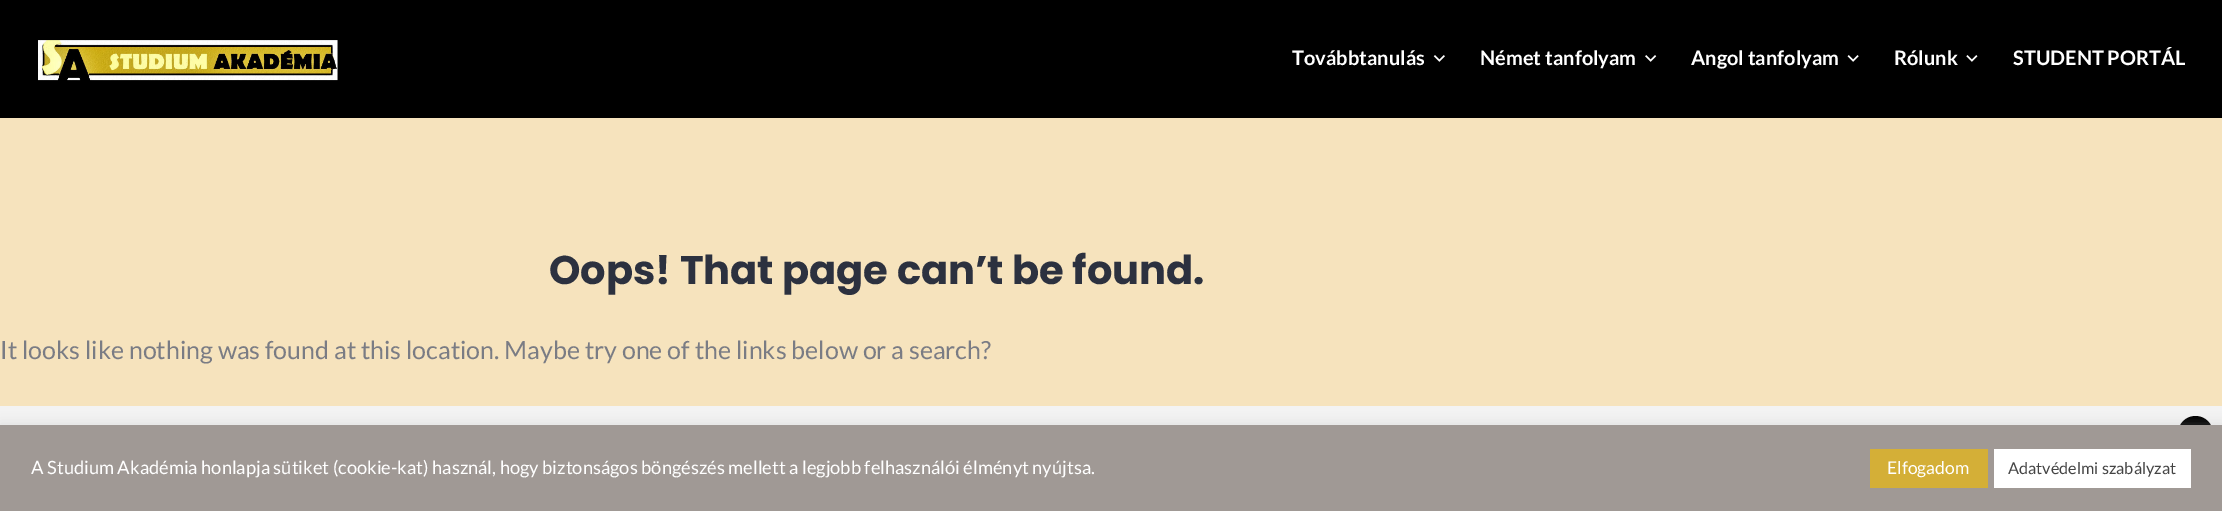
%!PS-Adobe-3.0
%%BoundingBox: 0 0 2222 511
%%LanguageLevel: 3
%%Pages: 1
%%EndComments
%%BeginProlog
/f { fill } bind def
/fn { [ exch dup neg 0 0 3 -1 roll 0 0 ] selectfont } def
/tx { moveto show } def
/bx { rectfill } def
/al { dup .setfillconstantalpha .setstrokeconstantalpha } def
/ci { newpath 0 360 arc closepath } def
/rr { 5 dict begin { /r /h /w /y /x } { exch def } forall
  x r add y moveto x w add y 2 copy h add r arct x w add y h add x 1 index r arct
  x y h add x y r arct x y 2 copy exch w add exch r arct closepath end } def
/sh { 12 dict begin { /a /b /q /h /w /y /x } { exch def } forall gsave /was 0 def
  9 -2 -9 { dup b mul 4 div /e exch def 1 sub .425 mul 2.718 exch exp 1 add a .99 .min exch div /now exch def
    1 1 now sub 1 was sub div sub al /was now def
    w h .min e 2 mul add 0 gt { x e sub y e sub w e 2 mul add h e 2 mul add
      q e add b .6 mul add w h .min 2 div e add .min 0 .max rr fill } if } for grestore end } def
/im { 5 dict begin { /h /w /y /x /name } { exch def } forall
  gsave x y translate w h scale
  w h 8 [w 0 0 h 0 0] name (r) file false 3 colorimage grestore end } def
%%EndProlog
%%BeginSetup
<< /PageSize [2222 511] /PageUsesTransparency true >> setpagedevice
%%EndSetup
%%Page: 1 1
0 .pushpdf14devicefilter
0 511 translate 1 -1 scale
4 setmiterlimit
0.965 0.89 0.741 setrgbcolor
0 0 2222 511 bx
0 setgray
0 0 2222 118 bx
(image0.raw) 38 40 300 41 im
/Lato-Bold 20 fn
1 setgray
(Továbbtanulás) 1292 65 tx
(image1.raw) 1433 55 12 7 im
(Német tanfolyam) 1480 65 tx
(image2.raw) 1645 55 12 7 im
(Angol tanfolyam) 1691 65 tx
(image3.raw) 1847 55 12 7 im
(Rólunk) 1894 65 tx
(image4.raw) 1966 55 12 7 im
(STUDENT PORTÁL) 2013 65 tx
/Poppins-Bold 40 fn
0.173 0.192 0.247 setrgbcolor
(Oops! That page can’t be found.) 549 284 tx
/Lato-Regular 25 fn
0.478 0.486 0.518 setrgbcolor
(It looks like nothing was found at this location. Maybe try one of the links below or a search?) 0 359 tx
0.953 setgray
0 406 2222 19 bx
0 setgray
2195.5 433.5 17.5 ci f
0.675 0.671 0.671 setrgbcolor
0 424 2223 86 0 6 0.3 sh
0.627 0.6 0.584 setrgbcolor
0 425 2222 86 bx
/Lato-Regular 18.33 fn
1 setgray
(A Studium Akadémia honlapja sütiket \(cookie-kat\) használ, hogy biztonságos böngészés mellett a legjobb felhasználói élményt nyújtsa.) 31 474 tx
0.831 0.686 0.216 setrgbcolor
1870 449 118 39 bx
/Lato-Regular 17.5 fn
1 setgray
(Elfogadom) 1887 474 tx
1994 449 197 39 bx
/Lato-Regular 16.25 fn
0.267 setgray
(Adatvédelmi szabályzat) 2008 474 tx
.poppdf14devicefilter showpage
%%EOF
